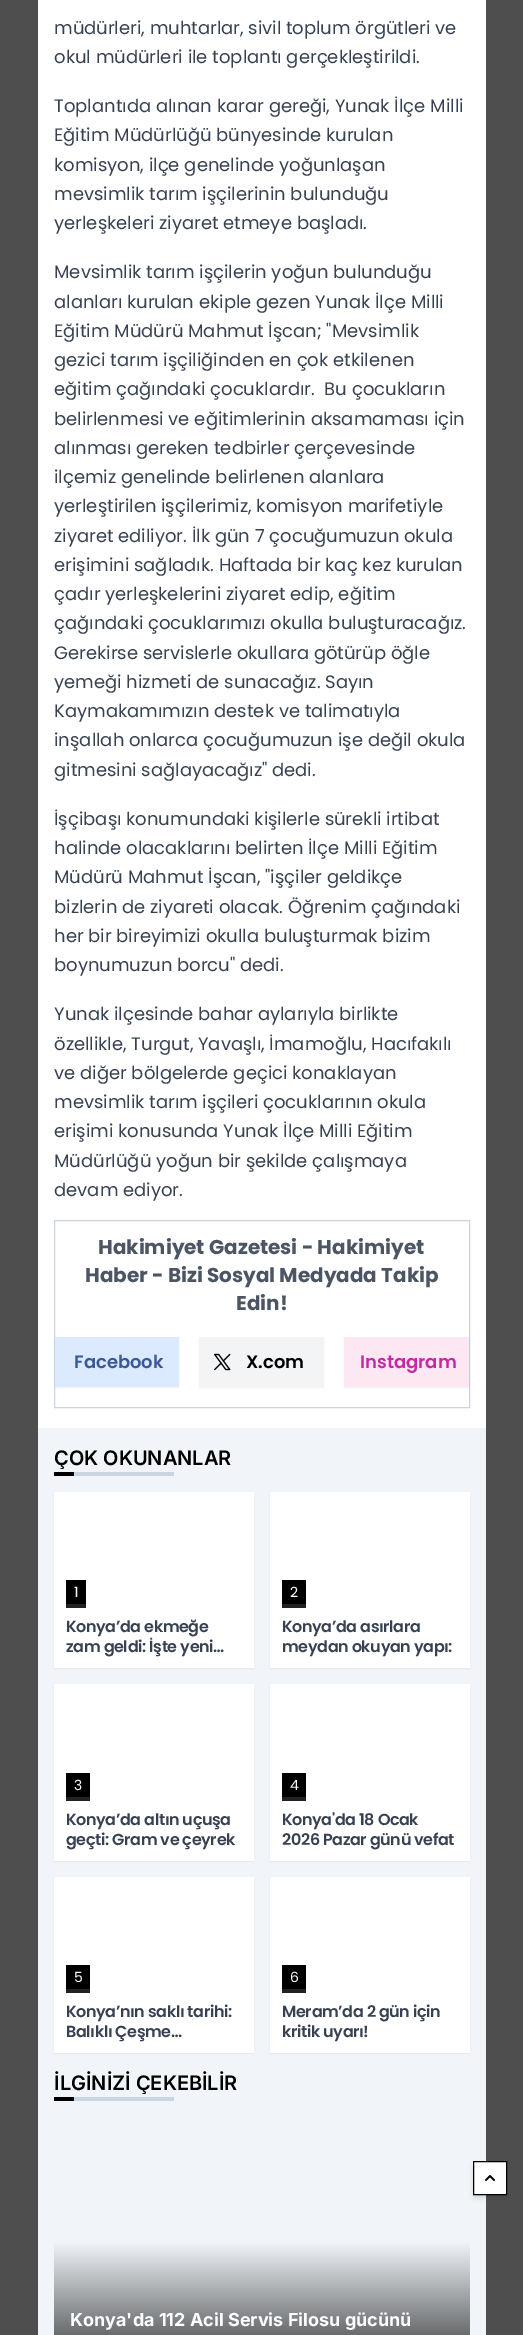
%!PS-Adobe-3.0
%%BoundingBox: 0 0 523 2335
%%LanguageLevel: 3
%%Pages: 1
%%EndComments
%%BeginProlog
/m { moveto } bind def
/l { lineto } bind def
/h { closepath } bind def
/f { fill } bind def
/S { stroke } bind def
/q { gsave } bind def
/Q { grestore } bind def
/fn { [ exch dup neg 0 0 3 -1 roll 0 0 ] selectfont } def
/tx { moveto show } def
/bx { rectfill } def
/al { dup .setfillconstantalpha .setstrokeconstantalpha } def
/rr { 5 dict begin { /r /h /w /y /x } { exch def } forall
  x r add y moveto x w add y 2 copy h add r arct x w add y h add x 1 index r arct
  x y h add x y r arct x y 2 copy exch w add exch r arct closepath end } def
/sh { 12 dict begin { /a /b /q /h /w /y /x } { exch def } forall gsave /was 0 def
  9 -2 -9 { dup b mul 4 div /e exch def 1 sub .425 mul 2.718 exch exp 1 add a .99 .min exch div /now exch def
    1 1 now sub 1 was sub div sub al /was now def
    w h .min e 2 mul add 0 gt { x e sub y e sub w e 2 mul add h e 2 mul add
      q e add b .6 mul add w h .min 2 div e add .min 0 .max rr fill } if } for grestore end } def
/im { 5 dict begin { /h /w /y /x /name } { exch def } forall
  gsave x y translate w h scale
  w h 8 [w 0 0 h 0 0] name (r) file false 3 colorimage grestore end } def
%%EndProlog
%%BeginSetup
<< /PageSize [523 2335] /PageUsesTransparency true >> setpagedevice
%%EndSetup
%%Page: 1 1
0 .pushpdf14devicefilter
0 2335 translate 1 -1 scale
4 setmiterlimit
0.306 setgray
0 0 523 2335 bx
1 setgray
38 0 448 1428 bx
/Poppins-Regular 18 fn
0.216 0.255 0.318 setrgbcolor
(müdürleri, muhtarlar, sivil toplum örgütleri ve) 54 34 tx
(okul müdürleri ile toplantı gerçekleştirildi.) 54 63 tx
(Toplantıda alınan karar gereği, Yunak İlçe Milli) 54 112 tx
(Eğitim Müdürlüğü bünyesinde kurulan) 54 141 tx
(komisyon, ilçe genelinde yoğunlaşan) 54 171 tx
(mevsimlik tarım işçilerinin bulunduğu) 54 200 tx
(yerleşkeleri ziyaret etmeye başladı.) 54 229 tx
(Mevsimlik tarım işçilerin yoğun bulunduğu) 54 278 tx
(alanları kurulan ekiple gezen Yunak İlçe Milli) 54 308 tx
(Eğitim Müdürü Mahmut İşcan; "Mevsimlik) 54 337 tx
(gezici tarım işçiliğinden en çok etkilenen) 54 366 tx
(eğitim çağındaki çocuklardır.  Bu çocukların) 54 395 tx
(belirlenmesi ve eğitimlerinin aksamaması için) 54 425 tx
(alınması gereken tedbirler çerçevesinde) 54 454 tx
(ilçemiz genelinde belirlenen alanlara) 54 483 tx
(yerleştirilen işçilerimiz, komisyon marifetiyle) 54 512 tx
(ziyaret ediliyor. İlk gün 7 çocuğumuzun okula) 54 542 tx
(erişimini sağladık. Haftada bir kaç kez kurulan) 54 571 tx
(çadır yerleşkelerini ziyaret edip, eğitim) 54 600 tx
(çağındaki çocuklarımızı okulla buluşturacağız.) 54 629 tx
(Gerekirse servislerle okullara götürüp öğle) 54 659 tx
(yemeği hizmeti de sunacağız. Sayın) 54 688 tx
(Kaymakamımızın destek ve talimatıyla) 54 717 tx
(inşallah onlarca çocuğumuzun işe değil okula) 54 746 tx
(gitmesini sağlayacağız" dedi.) 54 776 tx
(İşçibaşı konumundaki kişilerle sürekli irtibat) 54 825 tx
(halinde olacaklarını belirten İlçe Milli Eğitim) 54 854 tx
(Müdürü Mahmut İşcan, "işçiler geldikçe) 54 883 tx
(bizlerin de ziyareti olacak. Öğrenim çağındaki) 54 913 tx
(her bir bireyimizi okulla buluşturmak bizim) 54 942 tx
(boynumuzun borcu" dedi.) 54 971 tx
(Yunak ilçesinde bahar aylarıyla birlikte) 54 1020 tx
(özellikle, Turgut, Yavaşlı, İmamoğlu, Hacıfakılı) 54 1050 tx
(ve diğer bölgelerde geçici konaklayan) 54 1079 tx
(mevsimlik tarım işçileri çocuklarının okula) 54 1108 tx
(erişimi konusunda Yunak İlçe Milli Eğitim) 54 1137 tx
(Müdürlüğü yoğun bir şekilde çalışmaya) 54 1167 tx
(devam ediyor.) 54 1196 tx
0.796 0.835 0.882 setrgbcolor
54.5 1220.5 415 187 rectstroke
/Poppins-Bold 20 fn
0.294 0.333 0.388 setrgbcolor
(Hakimiyet Gazetesi - Hakimiyet) 98 1254 tx
(Haber - Bizi Sosyal Medyada Takip) 85 1282 tx
(Edin!) 236 1310 tx
0 setgray
55 1338 124 50 0 1 0.05 sh
0.859 0.918 0.996 setrgbcolor
55 1337 124 50 bx
/Poppins-SemiBold 18 fn
0.231 0.349 0.596 setrgbcolor
(Facebook) 74 1368 tx
0 setgray
199 1338 125 50 0 1 0.05 sh
0.953 0.957 0.965 setrgbcolor
199 1337 125 50 bx
(image0.raw) 214 1353 17 18 im
0 setgray
(X.com) 246 1368 tx
344 1338 125 50 0 1 0.05 sh
0.988 0.906 0.953 setrgbcolor
344 1337 125 50 bx
0.765 0.165 0.639 setrgbcolor
(Instagram) 360 1368 tx
0.945 0.961 0.976 setrgbcolor
38 1428 448 907 bx
/Inter-SemiBold 20 fn
0 setgray
(ÇOK OKUNANLAR) 54 1465 tx
54 1472 20 4 bx
0.796 0.835 0.882 setrgbcolor
74 1472 100 4 bx
0 setgray
54 1493 200 176 0 1 0.05 sh
1 setgray
54 1492 200 176 bx
0 setgray
66 1580 20 24 bx
0.133 setgray
66 1604 20 4 bx
/Poppins-Regular 14 fn
1 setgray
(1) 74 1597 tx
/Poppins-SemiBold 16 fn
0.216 0.255 0.318 setrgbcolor
66 1632 m -0.4 0 (Konya’da ekmeğe) ashow
66 1652 m -0.4 0 (zam geldi: İşte yeni…) ashow
0 setgray
270 1493 200 176 0 1 0.05 sh
1 setgray
270 1492 200 176 bx
0 setgray
282 1580 24 24 bx
0.133 setgray
282 1604 24 4 bx
/Poppins-Regular 14 fn
1 setgray
(2) 290 1597 tx
/Poppins-SemiBold 16 fn
0.216 0.255 0.318 setrgbcolor
282 1632 m -0.4 0 (Konya’da asırlara) ashow
282 1652 m -0.4 0 (meydan okuyan yapı:) ashow
0 setgray
54 1685 200 177 0 1 0.05 sh
1 setgray
54 1684 200 177 bx
0 setgray
66 1773 24 24 bx
0.133 setgray
66 1797 24 4 bx
/Poppins-Regular 14 fn
1 setgray
(3) 74 1790 tx
/Poppins-SemiBold 16 fn
0.216 0.255 0.318 setrgbcolor
66 1825 m -0.4 0 (Konya’da altın uçuşa) ashow
66 1845 m -0.4 0 (geçti: Gram ve çeyrek) ashow
0 setgray
270 1685 200 177 0 1 0.05 sh
1 setgray
270 1684 200 177 bx
0 setgray
282 1773 24 24 bx
0.133 setgray
282 1797 24 4 bx
/Poppins-Regular 14 fn
1 setgray
(4) 290 1790 tx
/Poppins-SemiBold 16 fn
0.216 0.255 0.318 setrgbcolor
282 1825 m -0.4 0 (Konya'da 18 Ocak) ashow
282 1845 m -0.4 0 (2026 Pazar günü vefat) ashow
0 setgray
54 1878 200 176 0 1 0.05 sh
1 setgray
54 1877 200 176 bx
0 setgray
66 1965 24 24 bx
0.133 setgray
66 1989 24 4 bx
/Poppins-Regular 14 fn
1 setgray
(5) 74 1982 tx
/Poppins-SemiBold 16 fn
0.216 0.255 0.318 setrgbcolor
66 2017 m -0.4 0 (Konya’nın saklı tarihi:) ashow
66 2037 m -0.4 0 (Balıklı Çeşme…) ashow
0 setgray
270 1878 200 176 0 1 0.05 sh
1 setgray
270 1877 200 176 bx
0 setgray
282 1965 24 24 bx
0.133 setgray
282 1989 24 4 bx
/Poppins-Regular 14 fn
1 setgray
(6) 290 1982 tx
/Poppins-SemiBold 16 fn
0.216 0.255 0.318 setrgbcolor
282 2017 m -0.4 0 (Meram’da 2 gün için) ashow
282 2037 m -0.4 0 (kritik uyarı!) ashow
/Inter-SemiBold 20 fn
0 setgray
(İLGİNİZİ ÇEKEBİLİR) 54 2090 tx
54 2097 20 4 bx
0.796 0.835 0.882 setrgbcolor
74 2097 100 4 bx
q 54 2243 m 470 2243 l 470 2335 l 54 2335 l h clip newpath
<< /ShadingType 2 /ColorSpace /DeviceRGB /Coords [262 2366 262 2117] /Extend [true true] /Function << /FunctionType 3 /Domain [0 1] /Functions [<< /FunctionType 2 /Domain [0 1] /C0 [0.235 0.239 0.243] /C1 [0.945 0.961 0.976] /N 1 >> << /FunctionType 2 /Domain [0 1] /C0 [0.945 0.961 0.976] /C1 [0.945 0.961 0.976] /N 1 >>] /Bounds [0.5] /Encode [0 1 0 1] >> >> shfill Q
/Inter-Bold 18 fn
1 setgray
(Konya'da 112 Acil Servis Filosu gücünü) 70 2326 tx
0 setgray
475 2165 30 30 0 2 0.1 sh
474 2166 32 32 0 3 0.1 sh
1 setgray
473.5 2161.5 m 506.5 2161.5 l 506.5 2194.5 l 473.5 2194.5 l h q f Q
0 setgray
S
(image1.raw) 485 2175 10 6 im
.poppdf14devicefilter showpage
%%EOF
